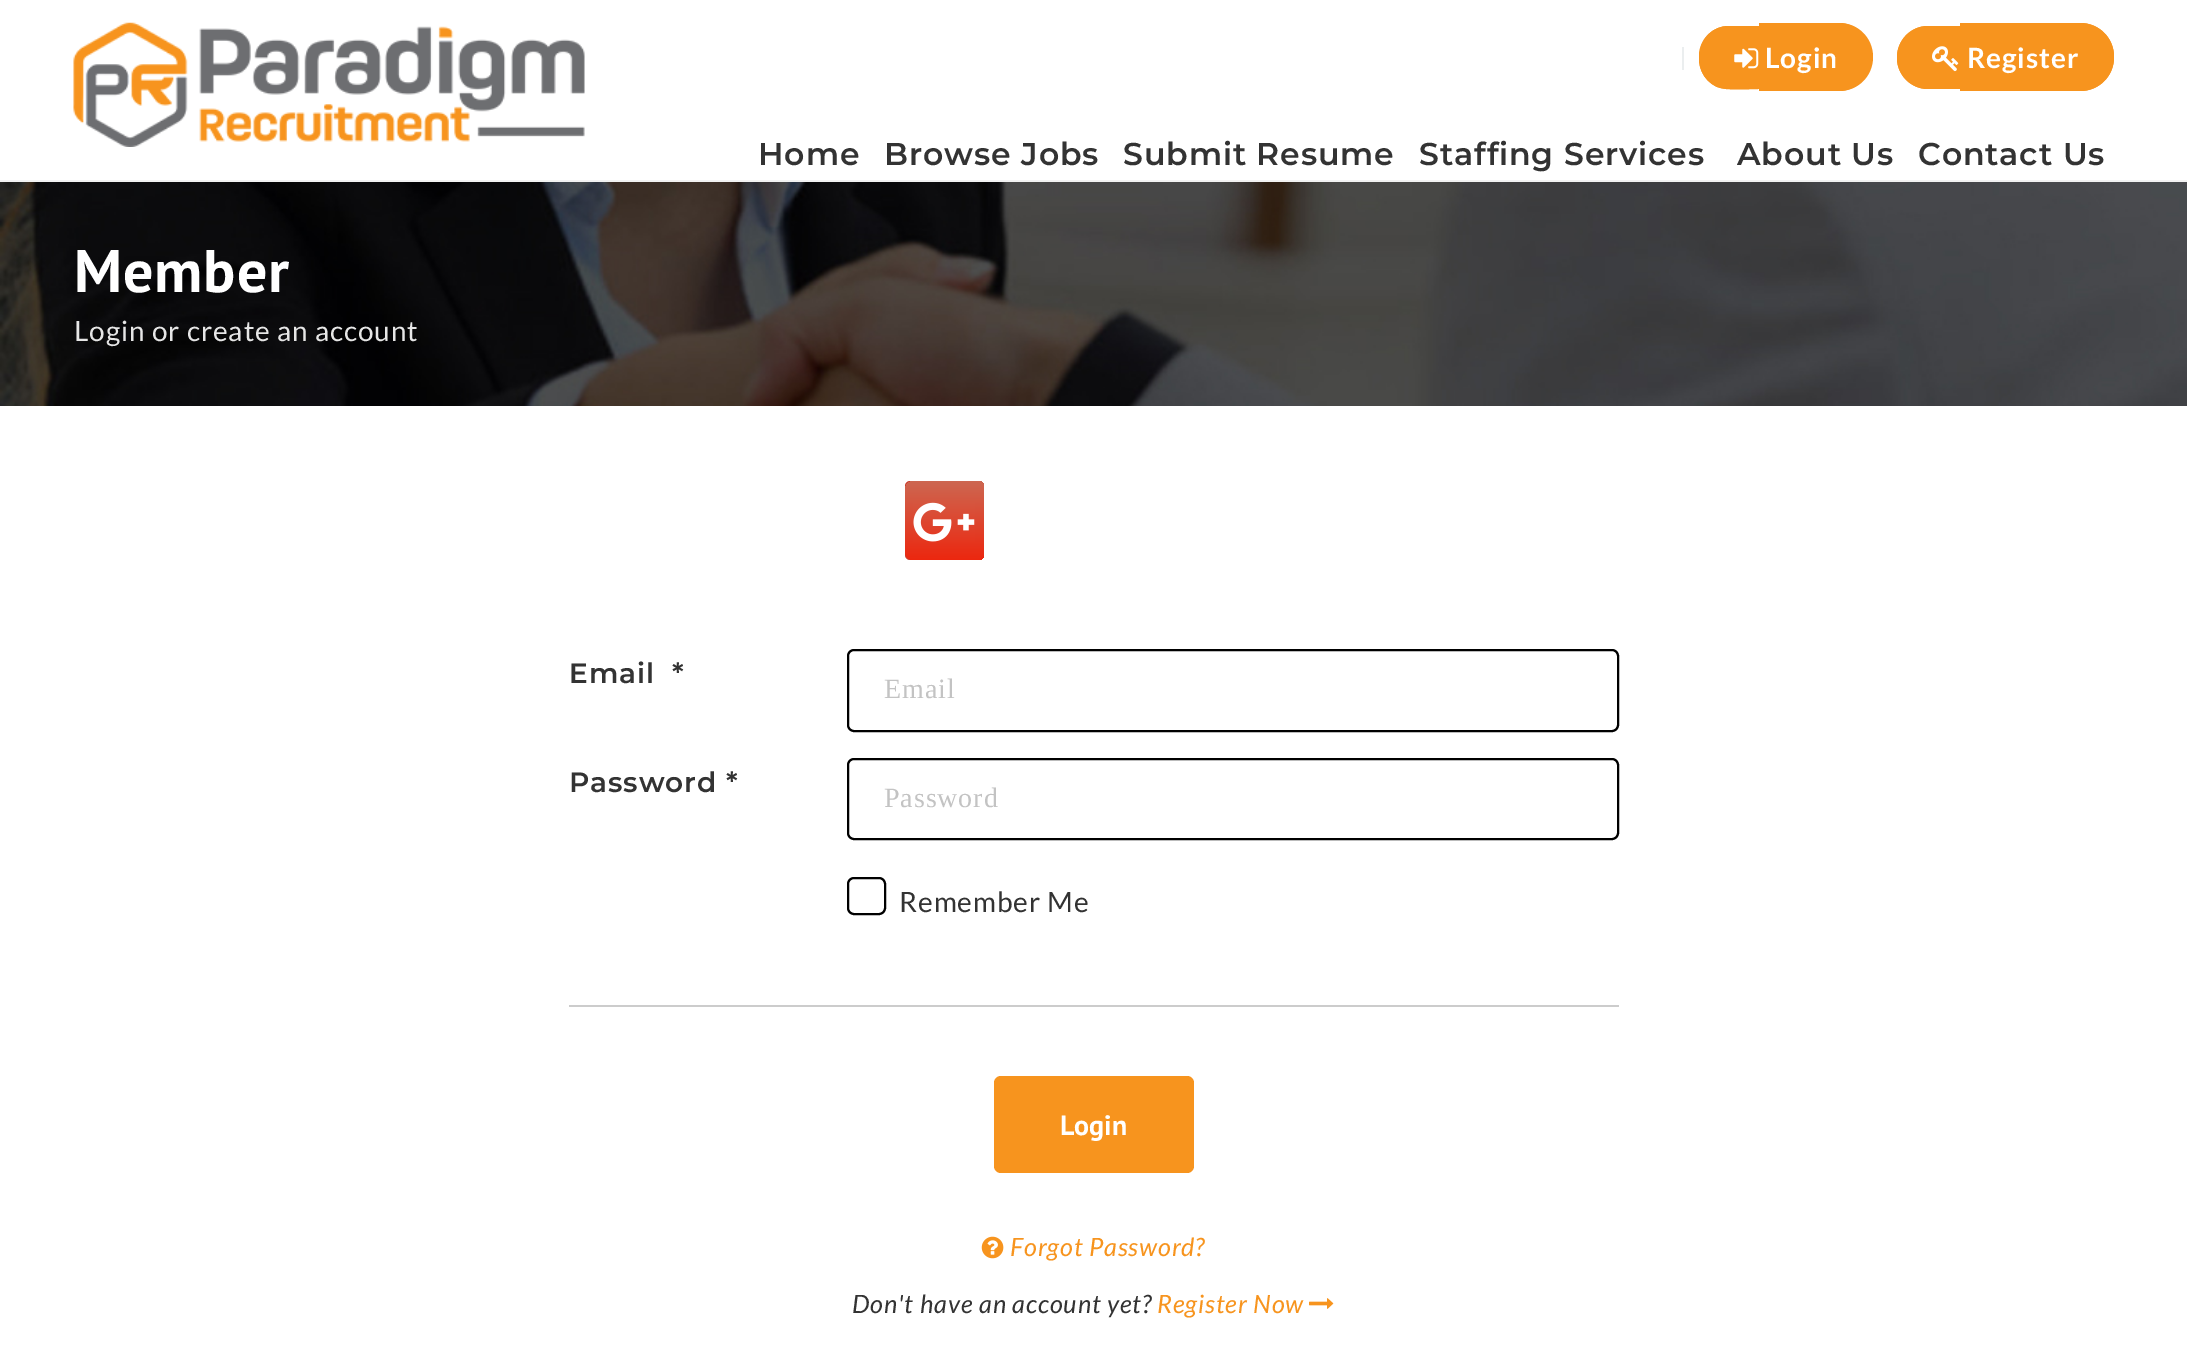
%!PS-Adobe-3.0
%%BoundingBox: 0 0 2187 1362
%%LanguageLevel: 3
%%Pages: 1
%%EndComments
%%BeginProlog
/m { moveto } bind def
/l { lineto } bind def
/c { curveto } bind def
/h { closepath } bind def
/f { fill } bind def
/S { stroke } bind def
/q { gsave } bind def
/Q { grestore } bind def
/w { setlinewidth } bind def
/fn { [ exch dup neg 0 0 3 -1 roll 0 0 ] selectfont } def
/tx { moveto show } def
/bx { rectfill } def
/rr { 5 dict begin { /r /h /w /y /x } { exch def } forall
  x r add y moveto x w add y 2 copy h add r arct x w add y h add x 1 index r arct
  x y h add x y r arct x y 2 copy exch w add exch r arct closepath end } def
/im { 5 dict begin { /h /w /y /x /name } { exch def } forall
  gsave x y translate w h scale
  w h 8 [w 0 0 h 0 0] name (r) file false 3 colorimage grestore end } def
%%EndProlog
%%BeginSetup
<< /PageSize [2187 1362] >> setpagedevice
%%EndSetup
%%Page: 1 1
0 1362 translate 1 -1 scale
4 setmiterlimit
1 setgray
0 0 2187 1362 bx
0.922 0.933 0.937 setrgbcolor
1682 47 2 23 bx
0.969 0.58 0.118 setrgbcolor
1729 26 m 1759 26 l 1759 89 l 1729 89 l 1712.5 89 1699 75.5 1699 59 c 1699 56 l 1699 39.5 1712.5 26 1729 26 c h f
1729 26 m 1759 26 l 1759 89 l 1748 89 1727 91 1717 87 c 1688 74 1696 26 1729 26 c h 1729 30 m 1759 30 l 1759 86 l 1739 86 l 1732 86 1725 86 1719 84 c 1693 73 1700 30 1729 30 c h eofill
1759 23 m 1839 23 l 1858 23 1873 38 1873 57 c 1873 76 1858 91 1839 91 c 1759 91 l h f
1759 23 m 1838 23 l 1857 23 1872 38 1872 57 c 1872 76 1857 91 1838 91 c 1759 91 l h 1759 26 m 1838 26 l 1855 26 1869 40 1869 57 c 1869 74 1855 88 1838 88 c 1759 88 l h eofill
(image0.raw) 1734 48 25 21 im
/Lato-Bold 28 fn
1 setgray
1765 68 m 0.9 0 (Login) ashow
0.969 0.58 0.118 setrgbcolor
1928.5 26 m 1960 26 l 1960 89 l 1928.5 89 l 1911 89 1897 75 1897 57.5 c 1897 40 1911 26 1928.5 26 c h f
1928 26 m 1960 26 l 1960 89 l 1928 89 l 1911 89 1897 75 1897 58 c 1897 40 1911 26 1928 26 c h 1928 30 m 1960 30 l 1960 86 l 1928 86 l 1913 86 1900 73 1900 58 c 1900 42 1913 30 1928 30 c h eofill
1960 23 m 2080 23 l 2099 23 2114 38 2114 57 c 2114 76 2099 91 2080 91 c 1960 91 l h f
1960 23 m 2080 23 l 2099 23 2114 38 2114 57 c 2114 76 2099 91 2080 91 c 1960 91 l h 1960 26 m 2080 26 l 2097 26 2110 40 2110 57 c 2110 74 2097 88 2080 88 c 1960 88 l h eofill
(image1.raw) 1932 46 27 26 im
1 setgray
1967 68 m 0.9 0 (Register) ashow
0.949 setgray
0 180 2187 2 bx
(image2.raw) 73 22 512 125 im
/Montserrat-SemiBold 31.5 fn
0.2 setgray
758 165 m 0.9 0 (Home) ashow
884 165 m 0.9 0 (Browse Jobs) ashow
1123 165 m 0.9 0 (Submit Resume) ashow
1419 165 m 0.9 0 (Staffing Services) ashow
1737 165 m 0.9 0 (About Us) ashow
1918 165 m 0.9 0 (Contact Us) ashow
(image3.raw) 0 182 2187 224 im
/PTSans-Bold 60 fn
1 setgray
74 292 m 0.9 0 (Member) ashow
/Lato-Regular 28 fn
0.902 setgray
74 341 m 0.9 0 (Login or create an account) ashow
0.8 0.239 0.176 setrgbcolor
905 481 79 79 5 rr f
q
905 481 79 79 5 rr clip newpath
q 914 481 m 979 481 l 982 481 984 483 984 486 c 984 555 l 984 558 982 560 979 560 c 914 560 l 909 560 905 556 905 551 c 905 490 l 905 485 909 481 914 481 c h clip newpath
<< /ShadingType 2 /ColorSpace /DeviceRGB /Coords [944 481 944 560] /Extend [true true] /Function << /FunctionType 2 /Domain [0 1] /C0 [0.804 0.404 0.318] /C1 [0.925 0.153 0.059] /N 1 >> >> shfill Q
Q
(image4.raw) 913 502 62 40 im
/Montserrat-SemiBold 28 fn
0.2 setgray
569 683 m 0.9 0 (Email) ashow
672 683 m 0.9 0 (*) ashow
0 setgray
2 w
848 650 770 81 6 rr S
/LiberationSerif-Regular 28 fn
0.765 setgray
884 698 m 0.9 0 (Email) ashow
/Montserrat-SemiBold 28 fn
0.2 setgray
569 792 m 0.9 0 (Password *) ashow
0 setgray
848 759 770 80 6 rr S
/LiberationSerif-Regular 28 fn
0.765 setgray
884 807 m 0.9 0 (Password) ashow
0 setgray
848 878 37 36 6 rr S
/Lato-Regular 28 fn
0.2 setgray
899 912 m 0.9 0 (Remember Me) ashow
0.8 setgray
569 1005 1050 2 bx
0.969 0.58 0.118 setrgbcolor
994 1076 200 97 7 rr f
/PTSans-Bold 28 fn
1 setgray
(Login) 1060 1135 tx
(image5.raw) 981 1236 23 23 im
/Lato-Italic 25.25 fn
0.969 0.58 0.118 setrgbcolor
1010 1256 m 0.9 0 (Forgot Password?) ashow
0.2 setgray
852 1313 m 0.9 0 (Don't have an account yet?) ashow
0.969 0.58 0.118 setrgbcolor
1157 1313 m 0.9 0 (Register Now) ashow
(image6.raw) 1309 1298 25 11 im
showpage
%%EOF
